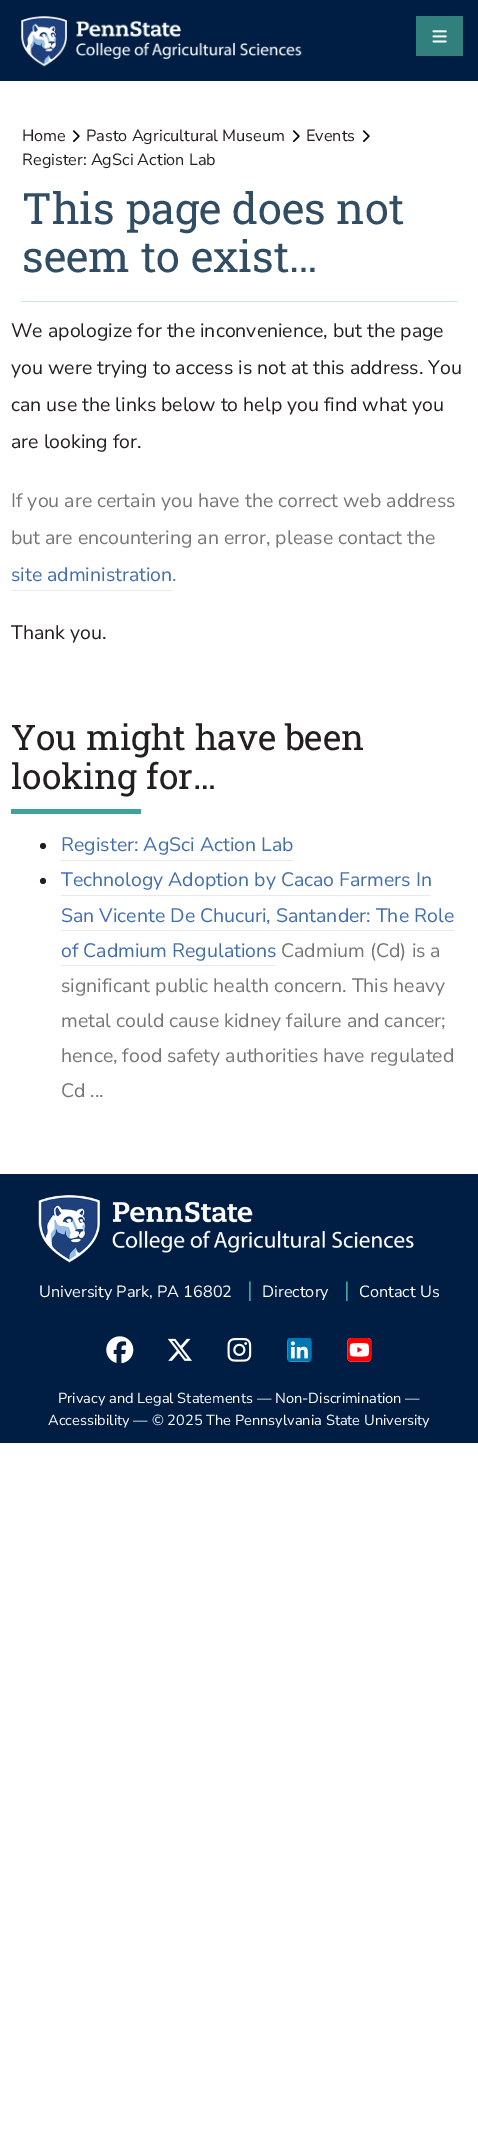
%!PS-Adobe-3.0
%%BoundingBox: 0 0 478 2147
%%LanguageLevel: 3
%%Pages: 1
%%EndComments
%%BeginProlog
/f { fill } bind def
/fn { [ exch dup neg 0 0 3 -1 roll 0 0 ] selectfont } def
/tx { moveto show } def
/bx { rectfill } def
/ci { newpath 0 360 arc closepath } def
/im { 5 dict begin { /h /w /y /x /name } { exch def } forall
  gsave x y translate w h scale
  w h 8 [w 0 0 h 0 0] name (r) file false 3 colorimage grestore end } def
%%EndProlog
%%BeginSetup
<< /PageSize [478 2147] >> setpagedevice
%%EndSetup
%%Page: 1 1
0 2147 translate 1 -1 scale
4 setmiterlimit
1 setgray
0 0 478 2147 bx
0 0.118 0.267 setrgbcolor
0 0 478 81 bx
(image0.raw) 21 16 281 51 im
0.196 0.502 0.49 setrgbcolor
416 16 47 40 bx
(image1.raw) 432 30 15 13 im
0.812 0.91 0.906 setrgbcolor
21 301 437 1 bx
/NunitoSans-Regular 16.25 fn
0.137 0.118 0.125 setrgbcolor
(Home) 22 141 tx
(image2.raw) 73 130 7 13 im
(Pasto Agricultural Museum) 86 141 tx
(image2.raw) 293 130 7 13 im
(Events) 306 141 tx
(image2.raw) 363 130 7 13 im
(Register: AgSci Action Lab) 22 165 tx
/RobotoSlab-Regular 43.25 fn
0.192 0.302 0.392 setrgbcolor
(This page does not) 22 224 tx
(seem to exist…) 22 272 tx
/NunitoSans-Regular 19.5 fn
0.137 0.118 0.125 setrgbcolor
(We apologize for the inconvenience, but the page) 11 337 tx
(you were trying to access is not at this address. You) 11 374 tx
(can use the links below to help you find what you) 11 411 tx
(are looking for.) 11 448 tx
0.463 setgray
(If you are certain you have the correct web address) 11 507 tx
(but are encountering an error, please contact the) 11 544 tx
0.251 0.431 0.682 setrgbcolor
(site administration) 11 581 tx
0.914 setgray
11 590 162 1 bx
0.463 setgray
(.) 172 581 tx
0.137 0.118 0.125 setrgbcolor
(Thank you.) 11 639 tx
/RobotoSlab-Regular 35.25 fn
(You might have been) 11 750 tx
(looking for…) 11 789 tx
0.243 0.639 0.62 setrgbcolor
11 809 130 5 bx
0.137 0.118 0.125 setrgbcolor
43 846 3 ci f
/NunitoSans-Regular 19.5 fn
0.251 0.431 0.682 setrgbcolor
(Register: AgSci Action Lab) 61 851 tx
0.914 setgray
61 860 232 1 bx
0.137 0.118 0.125 setrgbcolor
43 881 3 ci f
0.251 0.431 0.682 setrgbcolor
(Technology Adoption by Cacao Farmers In) 61 886 tx
0.914 setgray
61 895 370 1 bx
0.251 0.431 0.682 setrgbcolor
(San Vicente De Chucuri, Santander: The Role) 61 922 tx
0.914 setgray
61 930 393 1 bx
0.251 0.431 0.682 setrgbcolor
(of Cadmium Regulations) 61 957 tx
0.914 setgray
61 965 215 1 bx
0.463 setgray
(Cadmium \(Cd\) is a) 281 957 tx
(significant public health concern. This heavy) 61 992 tx
(metal could cause kidney failure and cancer;) 61 1027 tx
(hence, food safety authorities have regulated) 61 1062 tx
(Cd ...) 61 1097 tx
0 0.118 0.267 setrgbcolor
0 1174 478 269 bx
(image3.raw) 38 1195 376 68 im
/NunitoSans-Regular 16.25 fn
1 setgray
(University Park, PA 16802) 39 1297 tx
/NunitoSans-Regular 22 fn
0.243 0.639 0.62 setrgbcolor
(|) 247 1297 tx
/NunitoSans-Regular 16.25 fn
1 setgray
(Directory) 262 1297 tx
/NunitoSans-Regular 22 fn
0.243 0.639 0.62 setrgbcolor
(|) 344 1297 tx
/NunitoSans-Regular 16.25 fn
1 setgray
(Contact Us) 359 1297 tx
(image4.raw) 106 1336 28 28 im
(image5.raw) 167 1338 25 23 im
(image6.raw) 227 1338 25 24 im
(image7.raw) 287 1338 25 24 im
(image8.raw) 287 1338 25 24 im
(image7.raw) 347 1338 25 24 im
(image9.raw) 347 1338 25 24 im
/NunitoSans-Regular 14.6 fn
(Privacy and Legal Statements — Non-Discrimination —) 58 1403 tx
(Accessibility — © 2025 The Pennsylvania State University) 48 1425 tx
showpage
%%EOF
